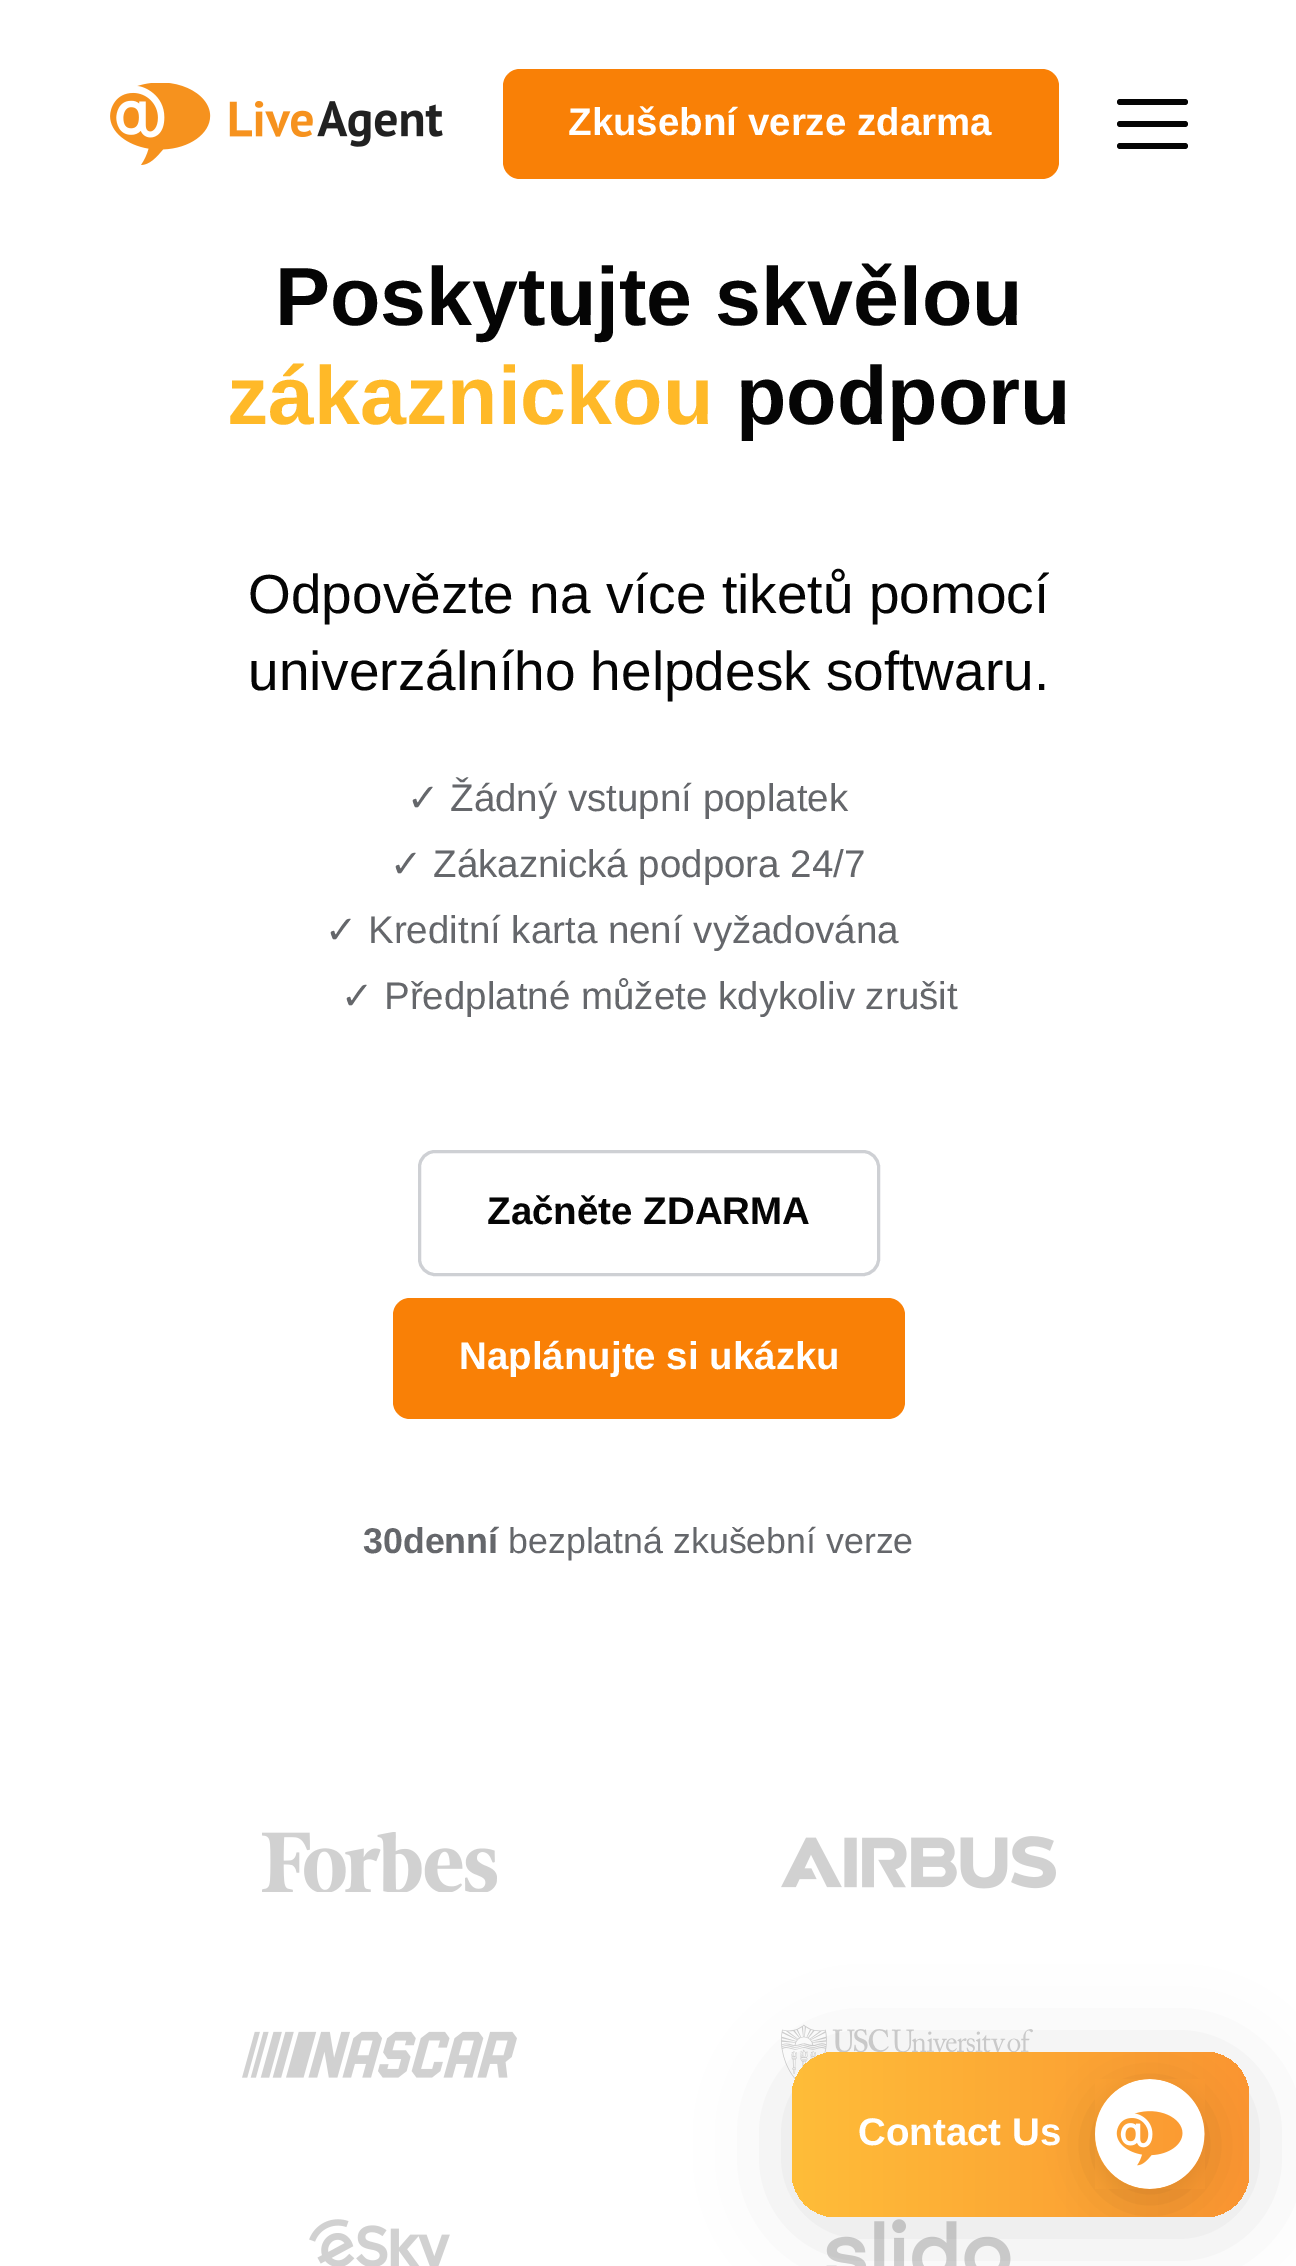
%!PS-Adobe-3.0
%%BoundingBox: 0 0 1296 2266
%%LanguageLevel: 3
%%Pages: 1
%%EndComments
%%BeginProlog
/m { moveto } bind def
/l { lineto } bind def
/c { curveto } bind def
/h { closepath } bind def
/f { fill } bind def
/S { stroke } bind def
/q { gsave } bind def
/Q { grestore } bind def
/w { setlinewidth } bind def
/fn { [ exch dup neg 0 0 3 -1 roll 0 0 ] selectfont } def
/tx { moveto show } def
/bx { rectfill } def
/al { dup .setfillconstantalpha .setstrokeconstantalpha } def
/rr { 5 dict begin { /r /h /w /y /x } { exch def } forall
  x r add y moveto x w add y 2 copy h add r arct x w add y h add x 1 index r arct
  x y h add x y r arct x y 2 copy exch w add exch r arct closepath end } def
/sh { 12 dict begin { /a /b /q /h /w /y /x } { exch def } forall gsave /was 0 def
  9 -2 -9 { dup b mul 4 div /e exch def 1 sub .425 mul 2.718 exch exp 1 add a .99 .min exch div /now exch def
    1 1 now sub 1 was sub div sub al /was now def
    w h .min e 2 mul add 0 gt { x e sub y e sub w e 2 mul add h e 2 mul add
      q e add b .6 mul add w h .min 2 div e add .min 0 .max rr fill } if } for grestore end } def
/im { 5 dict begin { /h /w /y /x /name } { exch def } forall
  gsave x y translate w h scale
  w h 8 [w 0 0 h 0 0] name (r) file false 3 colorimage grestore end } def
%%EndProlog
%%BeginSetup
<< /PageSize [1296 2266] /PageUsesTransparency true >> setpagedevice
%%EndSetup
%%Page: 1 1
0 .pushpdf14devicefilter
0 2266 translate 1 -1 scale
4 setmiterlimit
1 setgray
0 0 1296 2266 bx
(image0.raw) 110 83 333 82 im
0.976 0.502 0.024 setrgbcolor
503 69 556 110 17 rr f
/LiberationSans-Bold 38.5 fn
1 setgray
(Zkušební verze zdarma) 568 135 tx
0.02 setgray
1117 99 71 6 3 rr f
1117 121 71 6 3 rr f
1117 143 71 6 3 rr f
/LiberationSans-Bold 82.5 fn
(Poskytujte skvělou) 275 325 tx
1 0.725 0.157 setrgbcolor
(zákaznickou) 227 424 tx
0.02 setgray
(podporu) 736 424 tx
/LiberationSans-Regular 55 fn
(Odpovězte na více tiketů pomocí) 248 613 tx
(univerzálního helpdesk softwaru.) 248 690 tx
/DejaVuSans-Regular 38.5 fn
0.396 0.404 0.42 setrgbcolor
(✓) 407 811 tx
/LiberationSans-Regular 38.5 fn
(Žádný vstupní poplatek) 450 811 tx
/DejaVuSans-Regular 38.5 fn
(✓) 390 877 tx
/LiberationSans-Regular 38.5 fn
(Zákaznická podpora 24/7) 433 877 tx
/DejaVuSans-Regular 38.5 fn
(✓) 325 943 tx
/LiberationSans-Regular 38.5 fn
(Kreditní karta není vyžadována) 368 943 tx
/DejaVuSans-Regular 38.5 fn
(✓) 341 1009 tx
/LiberationSans-Regular 38.5 fn
(Předplatné můžete kdykoliv zrušit) 384 1009 tx
0.808 0.816 0.831 setrgbcolor
3 w
419.5 1151.5 459 123 15.5 rr S
/LiberationSans-Bold 38.5 fn
0.02 setgray
(Začněte ZDARMA) 487 1224 tx
0.976 0.502 0.024 setrgbcolor
393 1298 512 121 17 rr f
1 setgray
(Naplánujte si ukázku) 459 1369 tx
/LiberationSans-Bold 35.75 fn
0.396 0.404 0.42 setrgbcolor
(30denní) 363 1553 tx
/LiberationSans-Regular 35.75 fn
(bezplatná zkušební verze) 508 1553 tx
(image1.raw) 262 1832 235 60 im
(image2.raw) 781 1836 275 53 im
(image3.raw) 242 2031 275 47 im
(image4.raw) 781 2024 252 56 im
(image5.raw) 309 2219 141 47 im
(image6.raw) 826 2219 185 47 im
0 setgray
792 2063 457 165 44 44 0.12 sh
q 792 2052 457 165 44 rr clip newpath
<< /ShadingType 2 /ColorSpace /DeviceRGB /Coords [792 2134 1249 2134] /Extend [true true] /Function << /FunctionType 2 /Domain [0 1] /C0 [1 0.741 0.224] /C1 [0.98 0.584 0.192] /N 1 >> >> shfill Q
q
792 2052 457 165 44 rr clip newpath
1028 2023 m 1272 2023 l 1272 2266 l 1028 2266 l h 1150 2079 m 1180.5 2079 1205 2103.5 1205 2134 c 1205 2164.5 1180.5 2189 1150 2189 c 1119.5 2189 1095 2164.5 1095 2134 c 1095 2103.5 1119.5 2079 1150 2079 c h eoclip newpath
1095 2090 110 110 55 22 0.15 sh
Q
(image7.raw) 1095 2079 110 110 im
/LiberationSans-Bold 38.5 fn
1 setgray
(Contact Us) 858 2145 tx
.poppdf14devicefilter showpage
%%EOF
